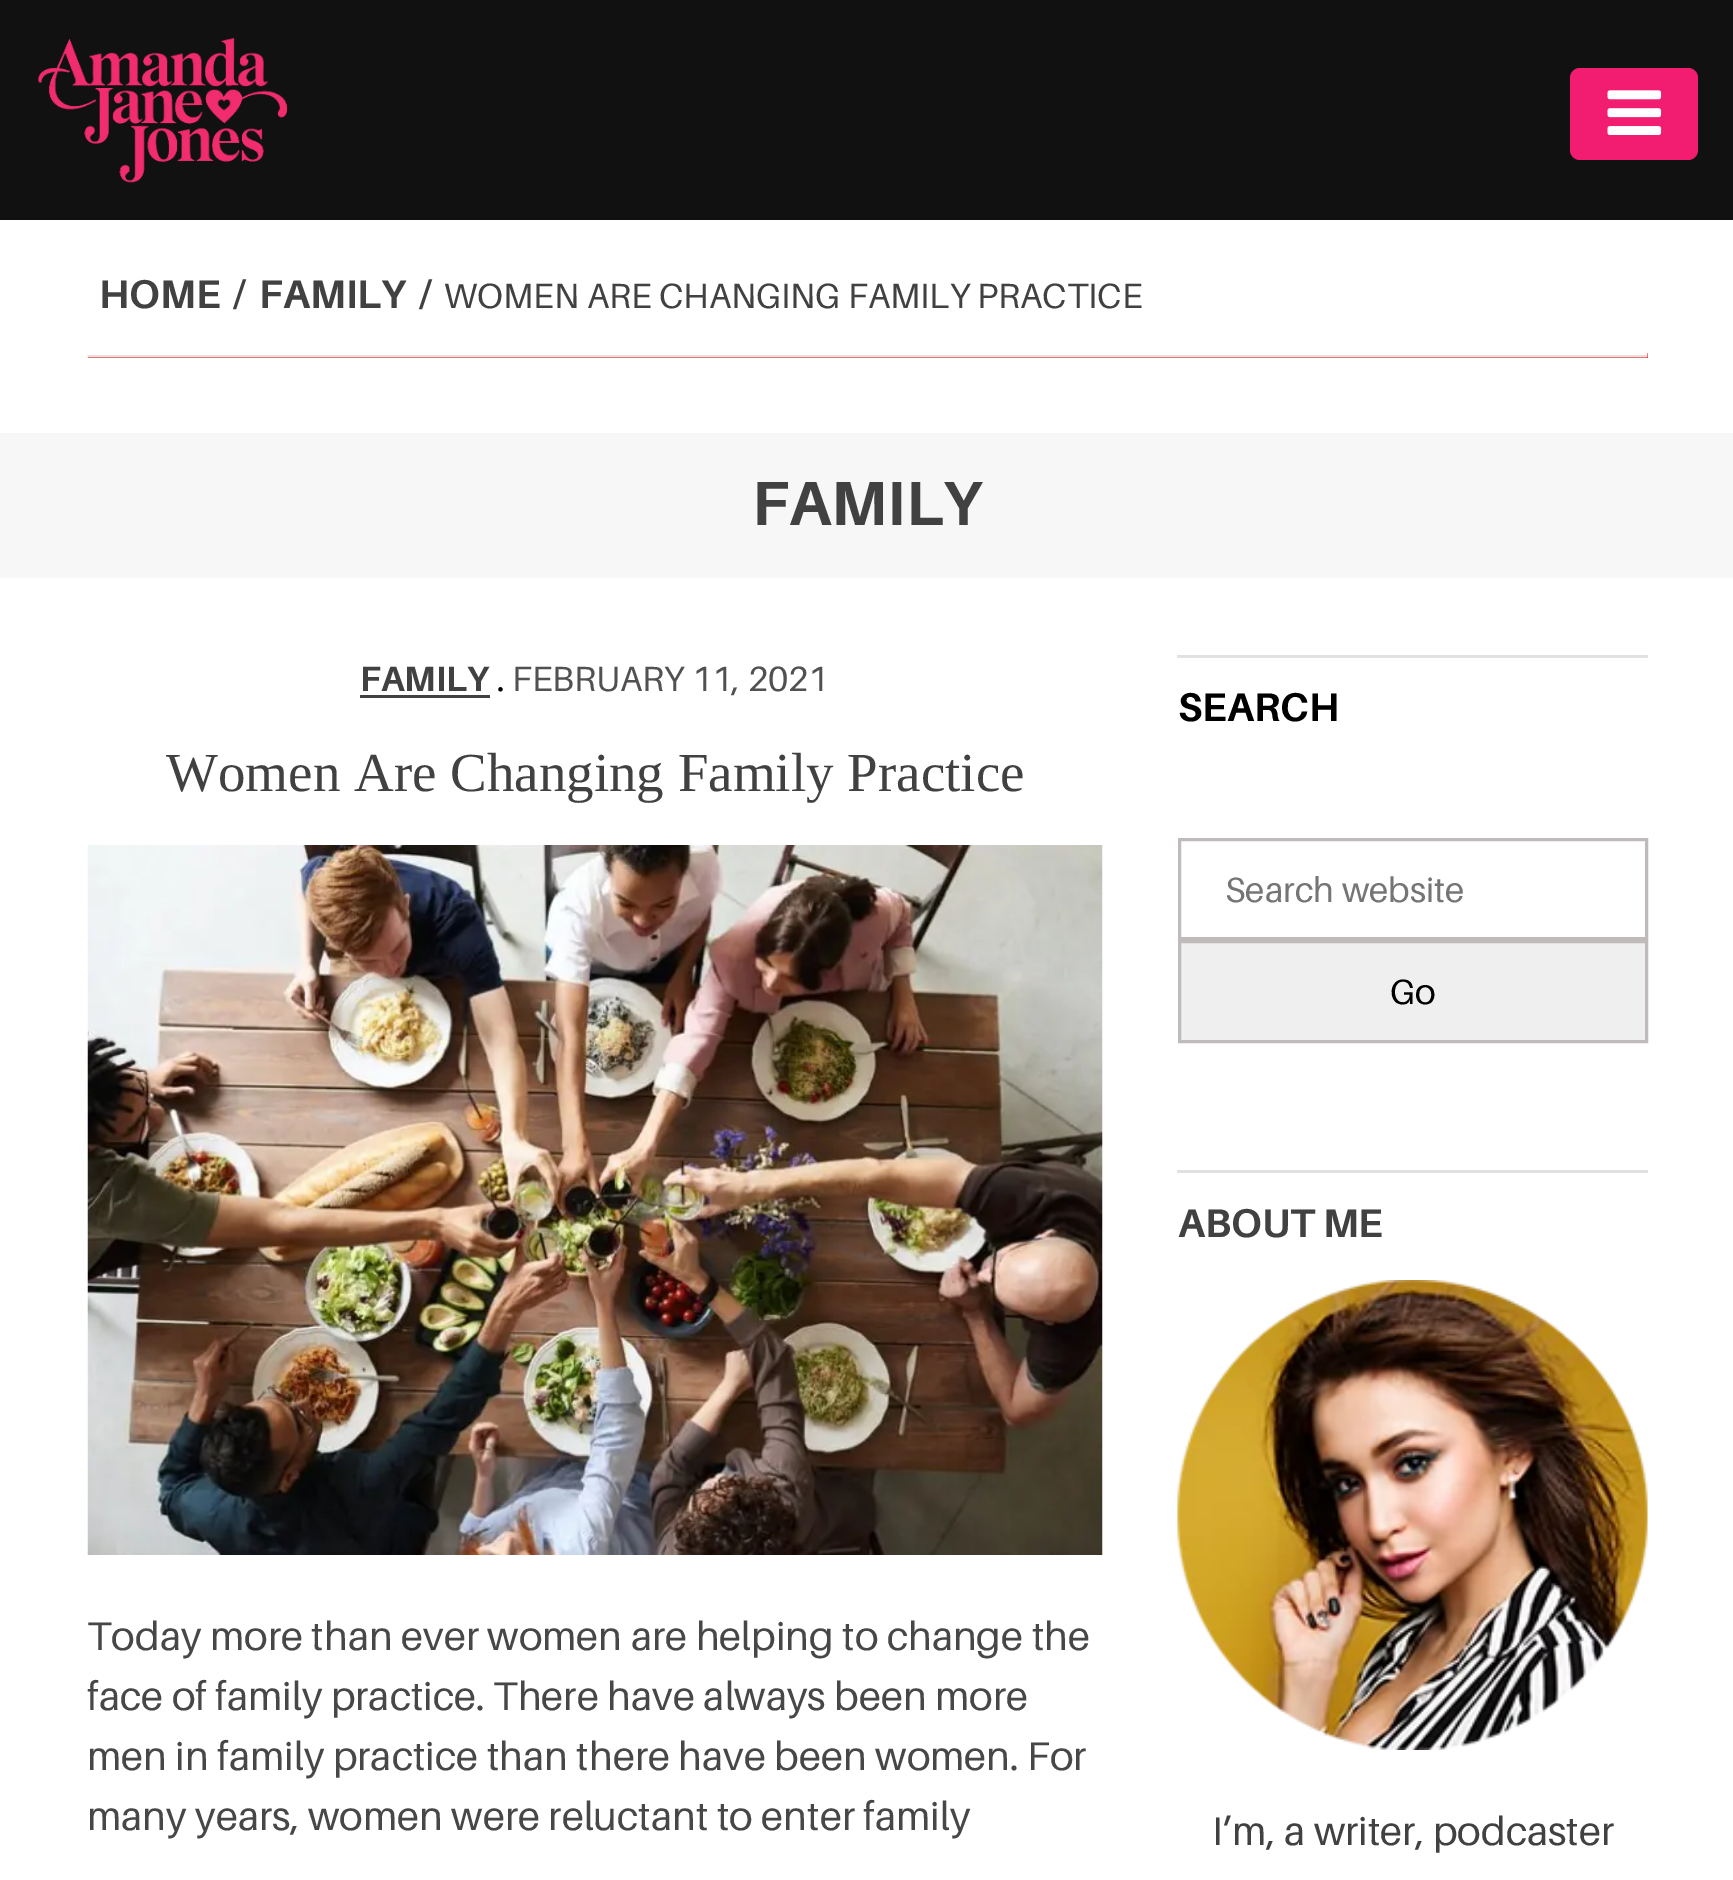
%!PS-Adobe-3.0
%%BoundingBox: 0 0 1733 1880
%%LanguageLevel: 3
%%Pages: 1
%%EndComments
%%BeginProlog
/m { moveto } bind def
/l { lineto } bind def
/h { closepath } bind def
/f { fill } bind def
/S { stroke } bind def
/q { gsave } bind def
/Q { grestore } bind def
/w { setlinewidth } bind def
/fn { [ exch dup neg 0 0 3 -1 roll 0 0 ] selectfont } def
/tx { moveto show } def
/bx { rectfill } def
/rr { 5 dict begin { /r /h /w /y /x } { exch def } forall
  x r add y moveto x w add y 2 copy h add r arct x w add y h add x 1 index r arct
  x y h add x y r arct x y 2 copy exch w add exch r arct closepath end } def
/im { 5 dict begin { /h /w /y /x /name } { exch def } forall
  gsave x y translate w h scale
  w h 8 [w 0 0 h 0 0] name (r) file false 3 colorimage grestore end } def
%%EndProlog
%%BeginSetup
<< /PageSize [1733 1880] >> setpagedevice
%%EndSetup
%%Page: 1 1
0 1880 translate 1 -1 scale
4 setmiterlimit
1 setgray
0 0 1733 1880 bx
0.067 setgray
0 0 1733 220 bx
(image0.raw) 37 37 250 146 im
0.949 0.11 0.439 setrgbcolor
1570 68 128 92 10 rr f
(image1.raw) 1607 90 55 45 im
/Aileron-Bold 40 fn
0.255 setgray
(HOME) 99 308 tx
(/) 233 308 tx
(FAMILY) 259 308 tx
(/) 419 308 tx
/Aileron-Regular 35 fn
(WOMEN ARE CHANGING FAMILY PRACTICE) 444 308 tx
1 0 0 setrgbcolor
88 353 1560 5 bx
(image2.raw) 87 353 1561 5 im
0.969 setgray
0 433 1733 145 bx
/Aileron-Bold 62.5 fn
0.255 setgray
(FAMILY) 752 525 tx
/Aileron-Bold 35 fn
(FAMILY) 360 691 tx
360 695 130 3 bx
/Aileron-Regular 35 fn
0 setgray
(.) 497 691 tx
0.325 0.314 0.314 setrgbcolor
(FEBRUARY 11, 2021) 512 691 tx
/LiberationSerif-Regular 55 fn
0.255 setgray
(Women Are Changing Family Practice) 166 791 tx
(image3.raw) 87 845 1016 710 im
/Aileron-Regular 40 fn
0.278 setgray
(Today more than ever women are helping to change the) 87 1650 tx
(face of family practice. There have always been more) 87 1710 tx
(men in family practice than there have been women. For) 87 1770 tx
(many years, women were reluctant to enter family) 87 1830 tx
0.882 setgray
1177 655 471 3 bx
/Aileron-Bold 40 fn
0 setgray
(SEARCH) 1178 721 tx
0.753 0.733 0.733 setrgbcolor
3 w
1179.5 839.5 467 99 rectstroke
/Aileron-Regular 35 fn
0.459 setgray
(Search website) 1225 902 tx
0.937 setgray
1179.5 941.5 m 1646.5 941.5 l 1646.5 1041.5 l 1179.5 1041.5 l h q f Q
0.753 0.733 0.733 setrgbcolor
S
0 setgray
(Go) 1390 1004 tx
0.882 setgray
1177 1170 471 3 bx
/Aileron-Bold 40 fn
0.255 setgray
(ABOUT ME) 1178 1237 tx
(image4.raw) 1177 1280 471 470 im
/Aileron-Regular 40 fn
(I’m, a writer, podcaster) 1212 1845 tx
showpage
%%EOF
